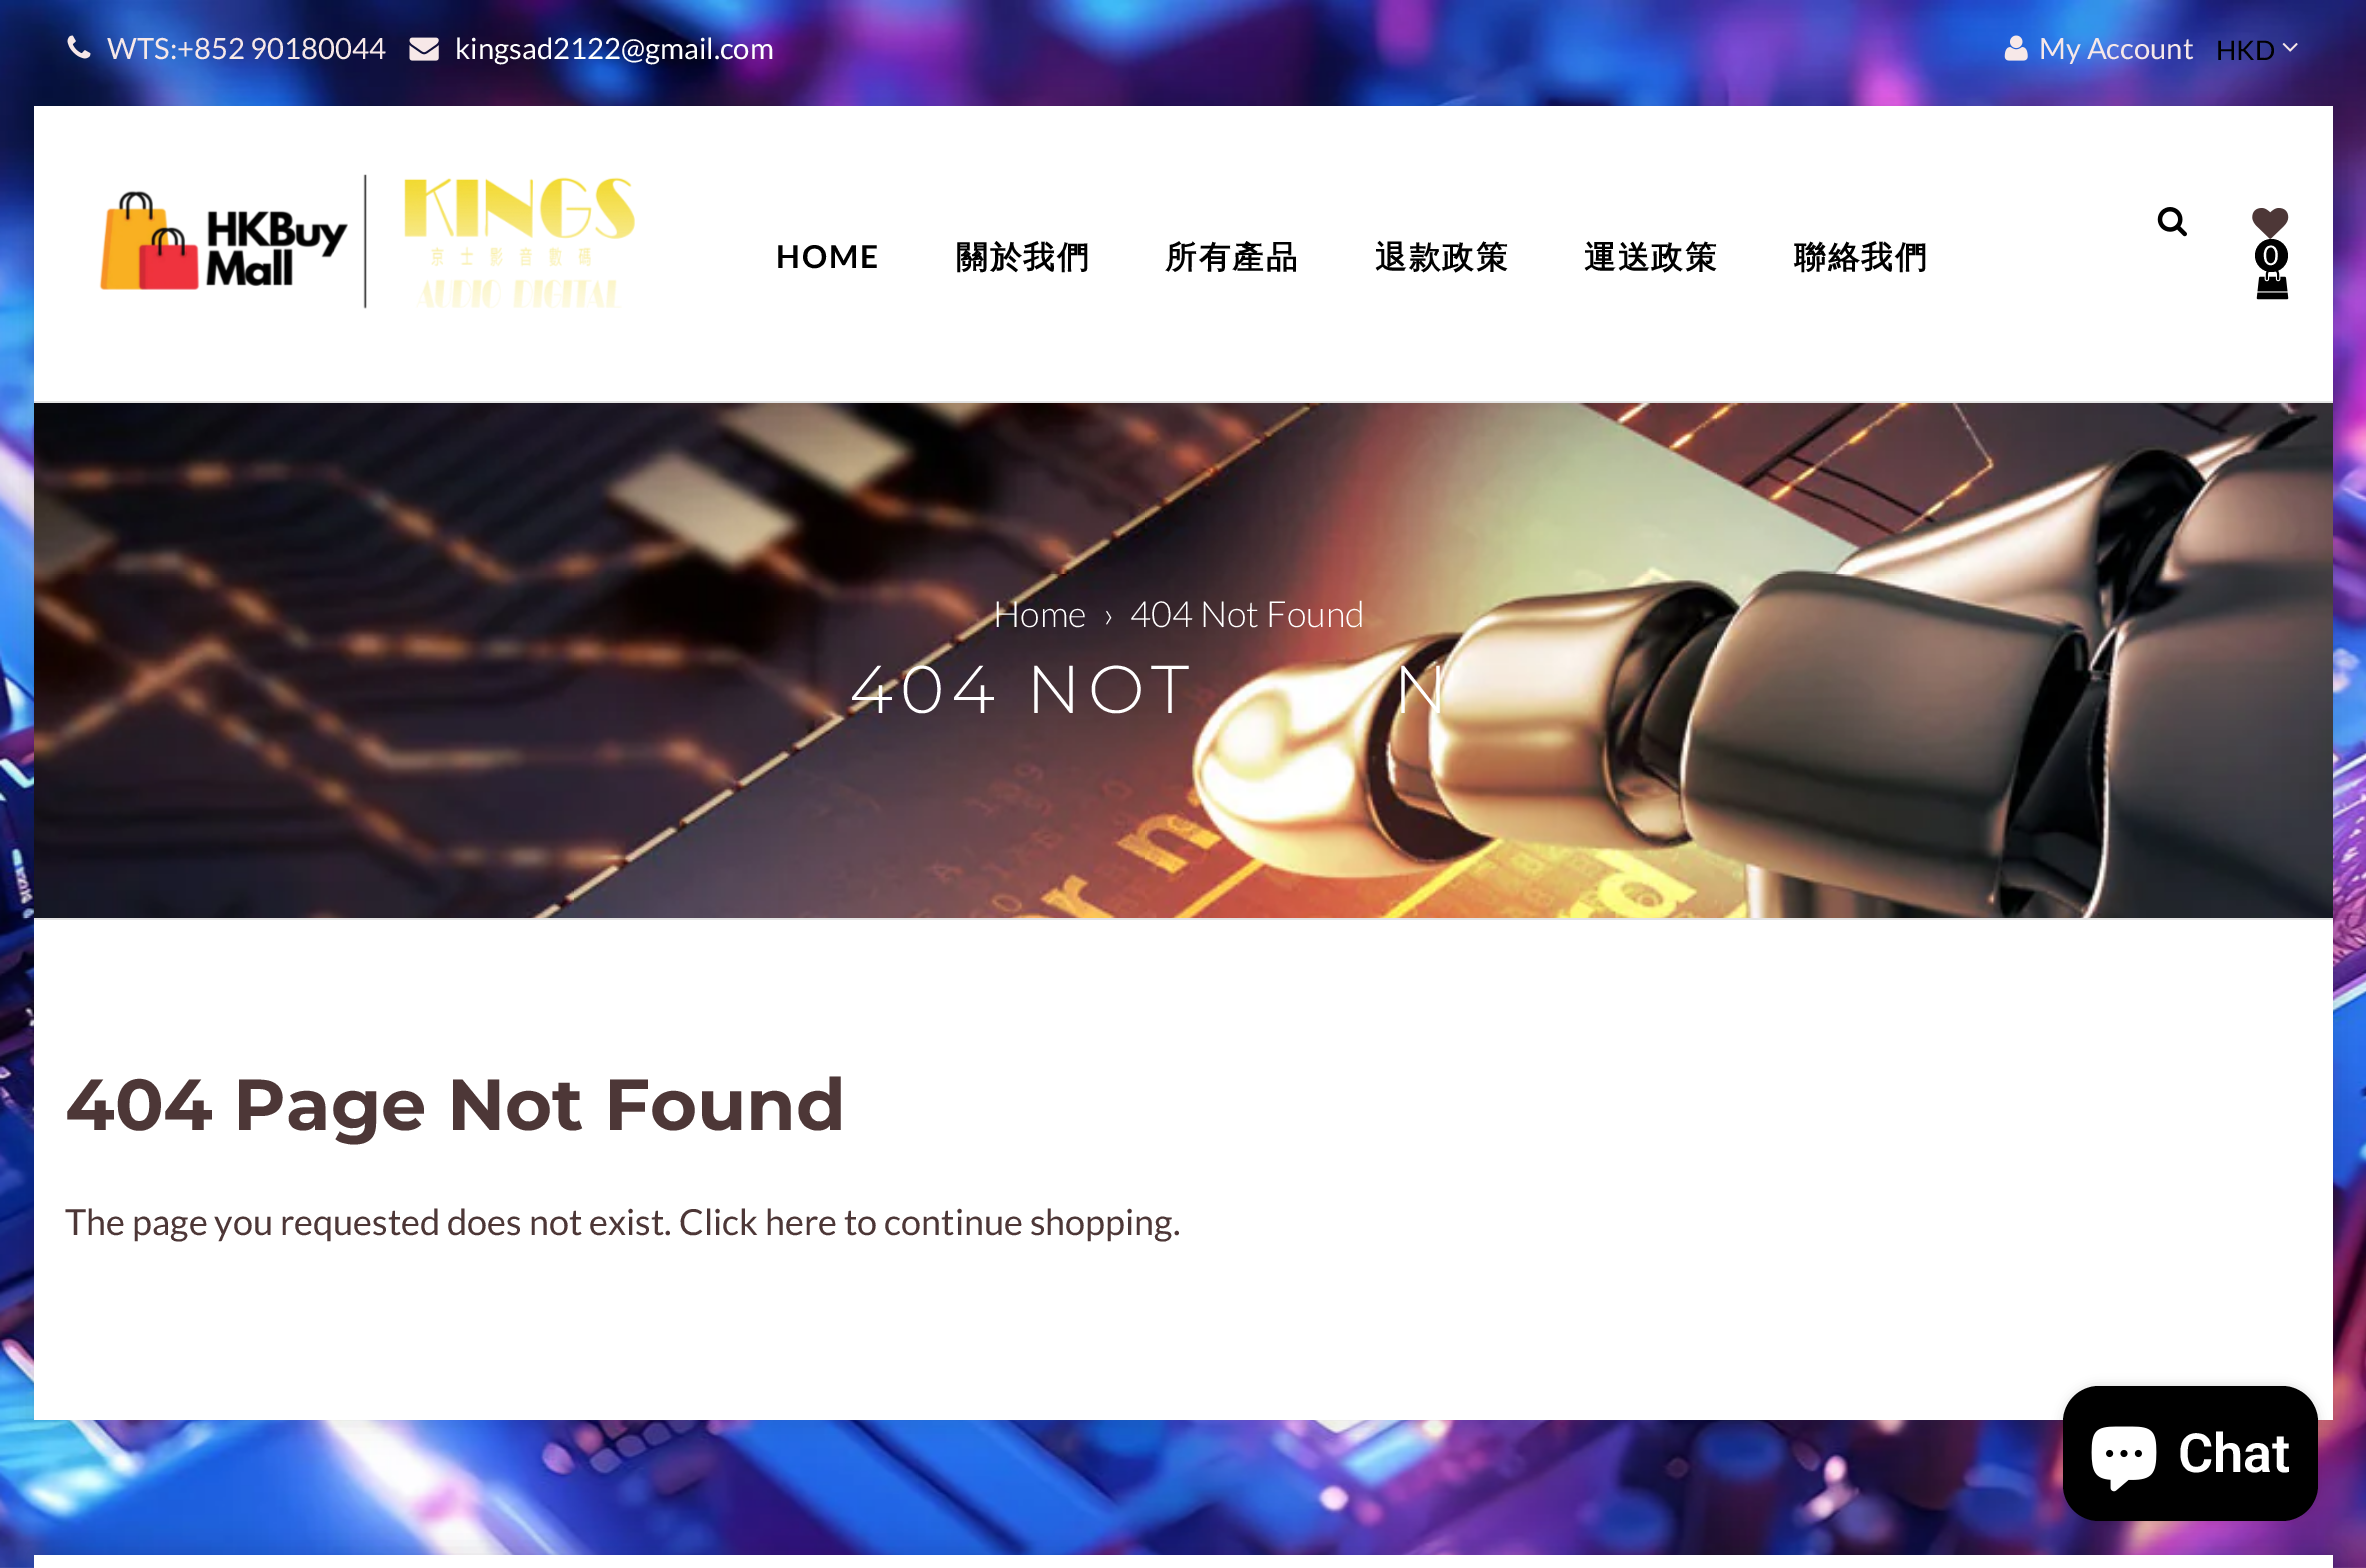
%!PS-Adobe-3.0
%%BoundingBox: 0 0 2366 1568
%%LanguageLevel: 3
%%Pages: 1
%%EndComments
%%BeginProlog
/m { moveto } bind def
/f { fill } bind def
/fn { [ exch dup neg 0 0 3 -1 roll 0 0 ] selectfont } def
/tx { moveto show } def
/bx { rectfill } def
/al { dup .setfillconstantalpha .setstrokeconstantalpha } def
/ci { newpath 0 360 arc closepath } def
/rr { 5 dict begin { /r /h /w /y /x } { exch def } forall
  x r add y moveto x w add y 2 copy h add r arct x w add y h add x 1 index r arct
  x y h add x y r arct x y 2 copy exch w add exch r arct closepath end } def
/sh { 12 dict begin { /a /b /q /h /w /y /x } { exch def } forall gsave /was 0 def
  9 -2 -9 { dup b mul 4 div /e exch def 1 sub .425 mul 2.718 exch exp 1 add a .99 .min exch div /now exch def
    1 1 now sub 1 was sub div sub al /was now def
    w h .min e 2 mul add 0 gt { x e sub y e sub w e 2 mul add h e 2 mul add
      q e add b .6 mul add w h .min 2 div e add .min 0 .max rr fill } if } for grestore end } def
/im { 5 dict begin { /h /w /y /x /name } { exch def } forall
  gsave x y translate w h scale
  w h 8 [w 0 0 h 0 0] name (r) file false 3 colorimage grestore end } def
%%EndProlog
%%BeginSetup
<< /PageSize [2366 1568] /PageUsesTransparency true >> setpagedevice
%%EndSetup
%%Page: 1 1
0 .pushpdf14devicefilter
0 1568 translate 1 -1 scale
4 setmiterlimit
1 setgray
0 0 2366 1568 bx
(image0.raw) 0 0 2366 1568 im
(image1.raw) 67 35 24 24 im
/Lato-Regular 29.25 fn
0.969 0.91 0.91 setrgbcolor
(WTS:+852 90180044) 107 59 tx
(image2.raw) 409 37 30 24 im
1 setgray
(kingsad2122@gmail.com) 455 59 tx
(image3.raw) 2004 35 24 26 im
0.969 0.91 0.91 setrgbcolor
(My Account) 2039 59 tx
/Lato-Regular 27 fn
0 setgray
(HKD) 2216 60 tx
(image4.raw) 2282 43 16 9 im
29 101 2309 1323 0 13.5 0.1 sh
1 setgray
34 106 2299 1314 bx
0.894 setgray
34 401 2299 2 bx
(image5.raw) 99 174 536 135 im
/Lato-Bold 31.5 fn
0 setgray
776 268 m 2 0 (HOME) ashow
/WenQuanYiZenHei-Bold 31.5 fn
956 268 m 2 0 (關於我們) ashow
1165 268 m 2 0 (所有產品) ashow
1375 268 m 2 0 (退款政策) ashow
1584 268 m 2 0 (運送政策) ashow
1794 268 m 2 0 (聯絡我們) ashow
(image6.raw) 2157 207 30 30 im
(image7.raw) 2252 208 37 31 im
(image8.raw) 2256 270 33 30 im
2271.5 255.5 16.5 ci f
/Lato-Regular 27 fn
1 setgray
(0) 2263 265 tx
(image9.raw) 34 403 2299 515 im
0.894 setgray
34 918 2299 2 bx
/Lato-Light 36 fn
1 setgray
(Home) 993 627 tx
(›) 1103 627 tx
(404 Not Found) 1130 627 tx
/Montserrat-Light 67.5 fn
849 713 m 6.75 0 (404 NOT) ashow
1393 713 m 6.75 0 (N) ashow
/Montserrat-Bold 72 fn
0.302 0.216 0.216 setrgbcolor
(404 Page Not Found) 65 1130 tx
/Lato-Regular 36 fn
(The page you requested does not exist. Click here to continue shopping.) 65 1235 tx
0 setgray
29 1550 2309 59 0 13.5 0.1 sh
1 setgray
34 1555 2299 13 bx
0 setgray
2063 1386 255 135 36 5.5 0.15 sh
2063 1386 255 135 36 rr f
(image10.raw) 2091 1426 66 66 im
/Roboto-SemiBold 54 fn
1 setgray
(Chat) 2178 1472 tx
.poppdf14devicefilter showpage
%%EOF
